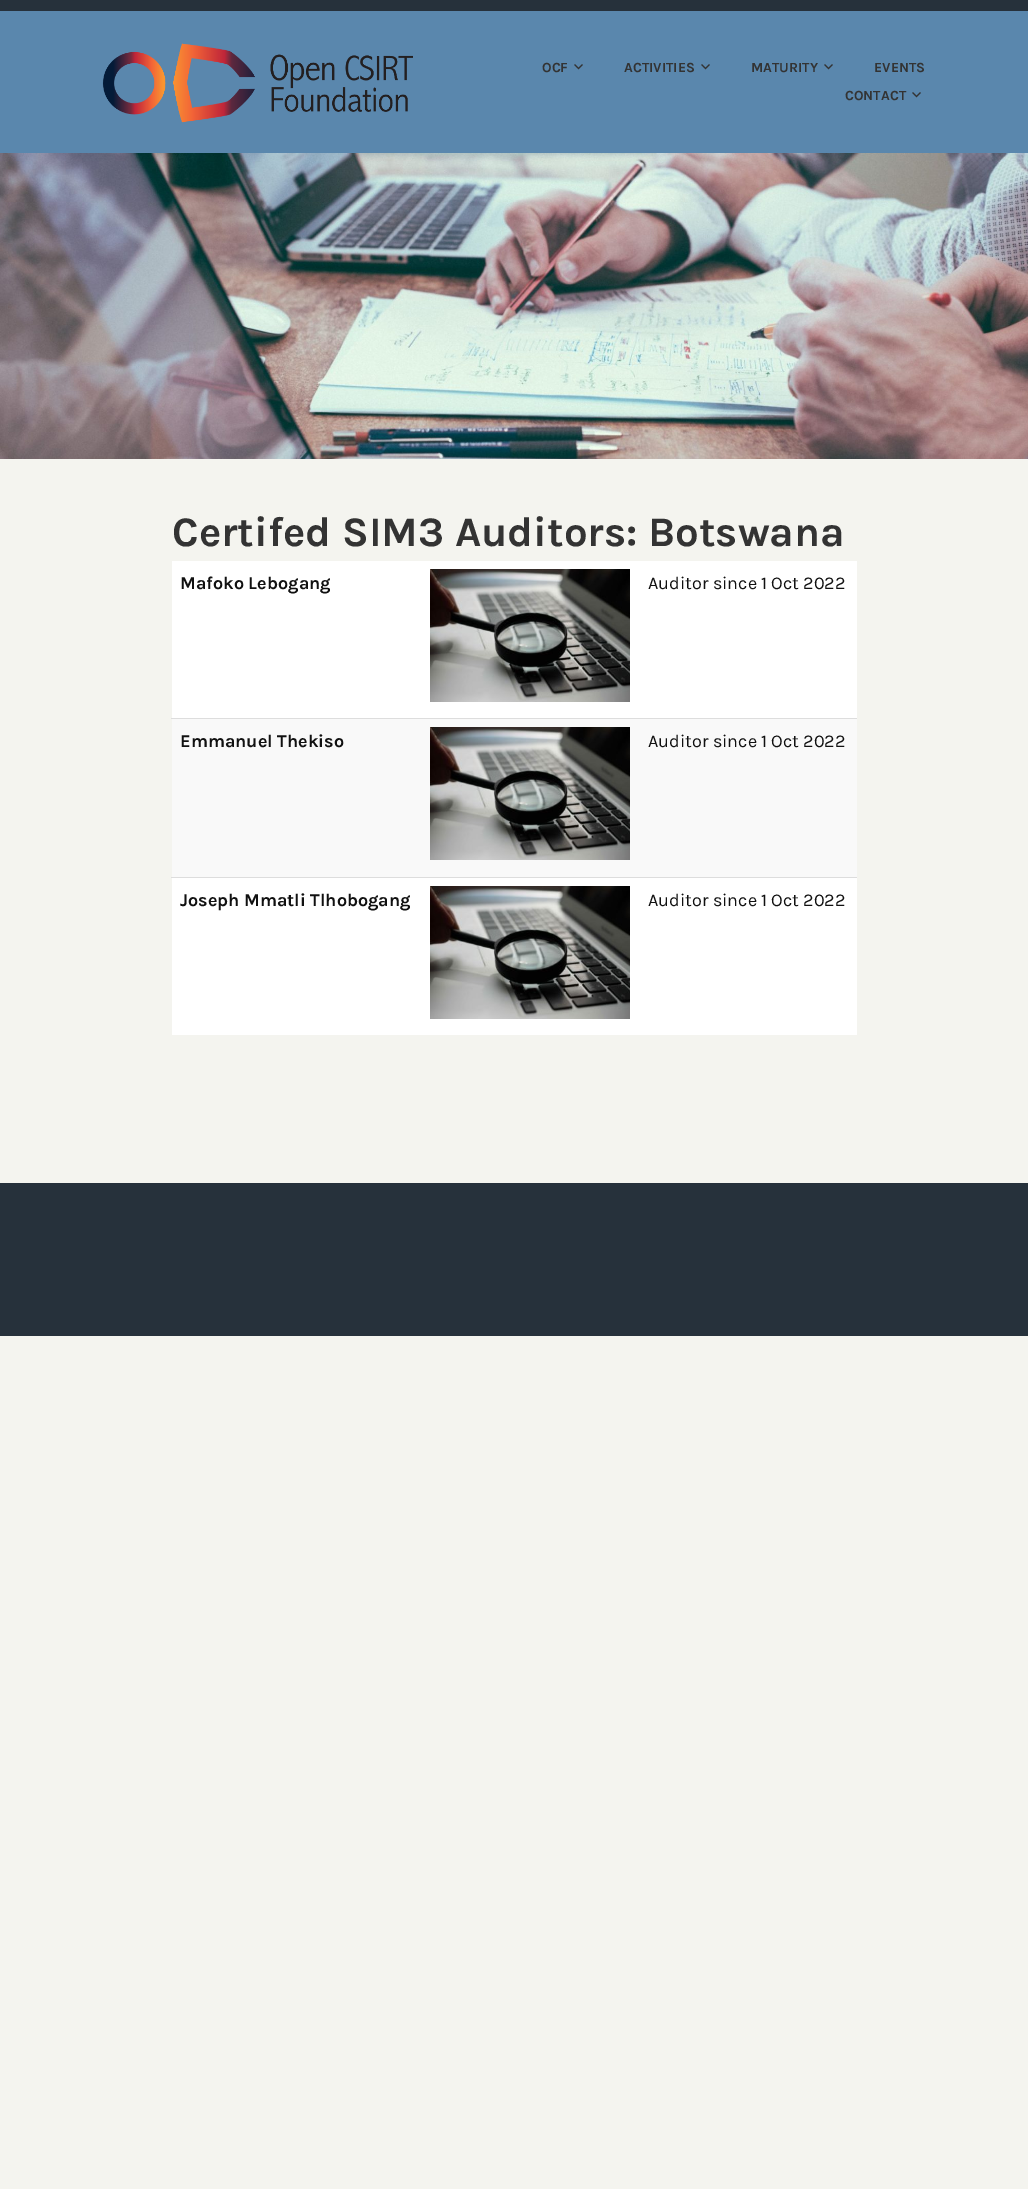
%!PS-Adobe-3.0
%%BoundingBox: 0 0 1028 2189
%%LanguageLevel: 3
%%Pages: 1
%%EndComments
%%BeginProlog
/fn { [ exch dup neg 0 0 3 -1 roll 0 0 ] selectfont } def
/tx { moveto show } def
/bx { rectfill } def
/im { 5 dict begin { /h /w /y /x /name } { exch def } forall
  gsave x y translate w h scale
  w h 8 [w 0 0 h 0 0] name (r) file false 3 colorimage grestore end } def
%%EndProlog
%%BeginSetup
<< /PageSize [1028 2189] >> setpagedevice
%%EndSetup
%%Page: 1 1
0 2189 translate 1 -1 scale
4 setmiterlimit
0.957 0.957 0.937 setrgbcolor
0 0 1028 2189 bx
0.149 0.192 0.231 setrgbcolor
0 0 1028 11 bx
0.353 0.529 0.678 setrgbcolor
0 11 1028 142 bx
(image0.raw) 102 43 311 80 im
/Karla-Bold 14 fn
0.2 setgray
(OCF) 542 72 tx
(image1.raw) 574 64 9 6 im
(ACTIVITIES) 624 72 tx
(image1.raw) 701 64 9 6 im
(MATURITY) 751 72 tx
(image1.raw) 824 64 9 6 im
(EVENTS) 874 72 tx
(CONTACT) 845 100 tx
(image1.raw) 912 92 9 6 im
(image2.raw) 0 153 1028 306 im
/Karla-Bold 42 fn
(Certifed SIM3 Auditors: Botswana) 172 546 tx
1 setgray
172 561 685 157 bx
/Karla-Bold 18 fn
0.067 setgray
(Mafoko Lebogang) 180 589 tx
(image3.raw) 430 569 200 133 im
/Karla-Regular 18 fn
(Auditor since 1 Oct 2022) 648 589 tx
0.976 setgray
172 719 685 158 bx
/Karla-Bold 18 fn
0.067 setgray
(Emmanuel Thekiso) 180 747 tx
(image3.raw) 430 727 200 133 im
0.867 setgray
171 718 686 1 bx
/Karla-Regular 18 fn
0.067 setgray
(Auditor since 1 Oct 2022) 648 747 tx
1 setgray
172 878 685 157 bx
/Karla-Bold 18 fn
0.067 setgray
(Joseph Mmatli Tlhobogang) 180 906 tx
(image3.raw) 430 886 200 133 im
0.867 setgray
171 877 686 1 bx
/Karla-Regular 18 fn
0.067 setgray
(Auditor since 1 Oct 2022) 648 906 tx
0.149 0.192 0.231 setrgbcolor
0 1183 1028 153 bx
showpage
%%EOF
